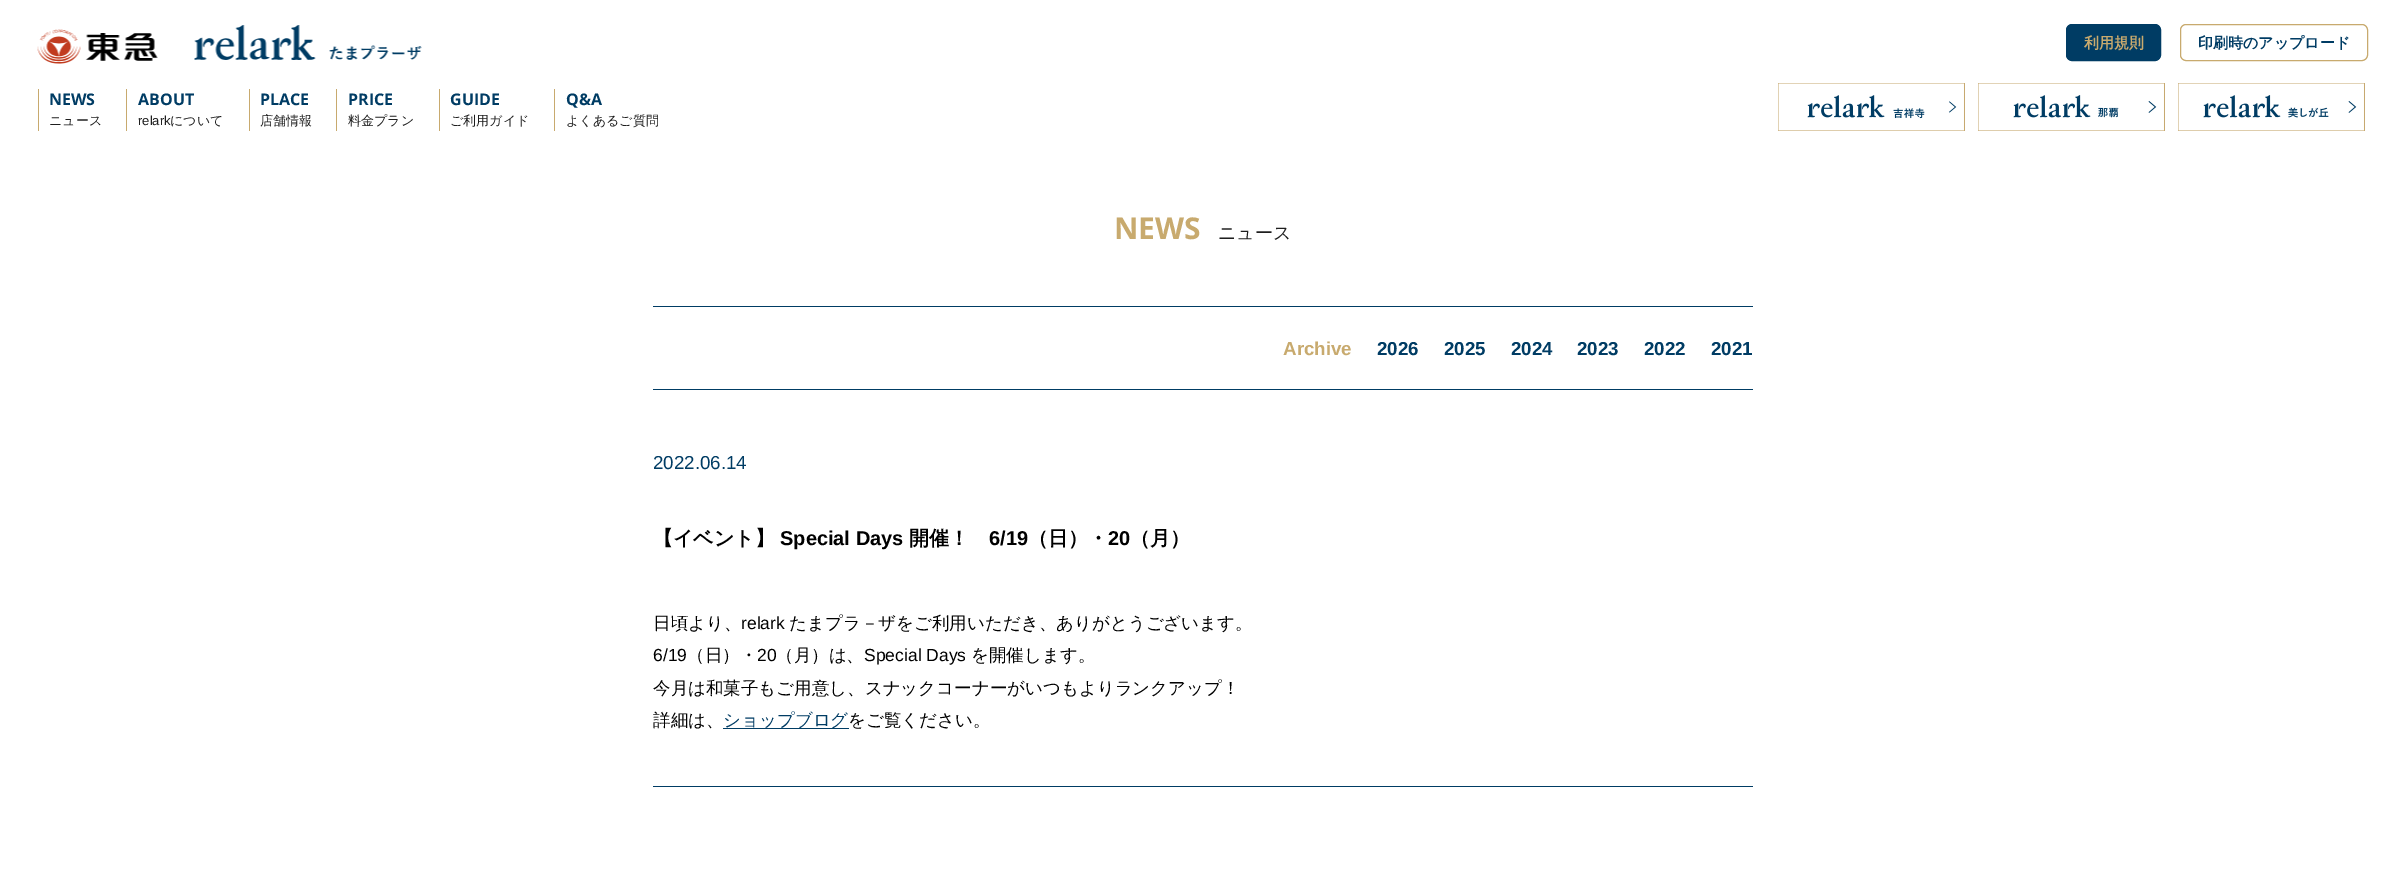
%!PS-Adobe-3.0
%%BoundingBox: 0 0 2405 873
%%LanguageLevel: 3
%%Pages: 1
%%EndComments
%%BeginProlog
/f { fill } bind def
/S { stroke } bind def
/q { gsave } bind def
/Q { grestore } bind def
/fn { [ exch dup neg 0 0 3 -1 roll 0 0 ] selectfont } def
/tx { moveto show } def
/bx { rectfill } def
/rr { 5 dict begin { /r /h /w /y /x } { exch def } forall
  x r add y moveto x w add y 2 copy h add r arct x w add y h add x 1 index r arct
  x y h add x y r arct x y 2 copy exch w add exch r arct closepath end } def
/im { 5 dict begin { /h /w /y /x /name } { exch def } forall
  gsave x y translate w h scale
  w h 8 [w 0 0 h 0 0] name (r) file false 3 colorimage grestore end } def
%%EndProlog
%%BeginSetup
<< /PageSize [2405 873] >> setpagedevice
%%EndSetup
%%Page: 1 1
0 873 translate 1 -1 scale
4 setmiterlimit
1 setgray
0 0 2405 873 bx
(image0.raw) 37 25 385 39 im
0 0.235 0.392 setrgbcolor
2066.5 24.5 94 36 5.5 rr q f Q
S
/WenQuanYiZenHei-Bold 15 fn
0.784 0.667 0.431 setrgbcolor
(利用規則) 2084 48 tx
2180.5 24.5 187 36 5.5 rr S
0 0.235 0.392 setrgbcolor
(印刷時のアップロード) 2198 48 tx
0.784 0.667 0.431 setrgbcolor
38 89 1 42 bx
/OpenSans-Bold 16 fn
0 0.235 0.392 setrgbcolor
(NEWS) 49 105 tx
/WenQuanYiZenHei-Medium 13 fn
0.118 setgray
(ニュース) 49 125 tx
0.784 0.667 0.431 setrgbcolor
126 89 1 42 bx
/OpenSans-Bold 16 fn
0 0.235 0.392 setrgbcolor
(ABOUT) 138 105 tx
/LiberationSans-Regular 13 fn
0.118 setgray
(relark) 138 125 tx
/WenQuanYiZenHei-Medium 13 fn
(について) 170 125 tx
0.784 0.667 0.431 setrgbcolor
249 89 1 42 bx
/OpenSans-Bold 16 fn
0 0.235 0.392 setrgbcolor
(PLACE) 260 105 tx
/WenQuanYiZenHei-Medium 13 fn
0.118 setgray
(店舗情報) 260 125 tx
0.784 0.667 0.431 setrgbcolor
336 89 1 42 bx
/OpenSans-Bold 16 fn
0 0.235 0.392 setrgbcolor
(PRICE) 348 105 tx
/WenQuanYiZenHei-Medium 13 fn
0.118 setgray
(料金プラン) 348 125 tx
0.784 0.667 0.431 setrgbcolor
439 89 1 42 bx
/OpenSans-Bold 16 fn
0 0.235 0.392 setrgbcolor
(GUIDE) 450 105 tx
/WenQuanYiZenHei-Medium 13 fn
0.118 setgray
(ご利用ガイド) 450 125 tx
0.784 0.667 0.431 setrgbcolor
554 89 1 42 bx
/OpenSans-Bold 16 fn
0 0.235 0.392 setrgbcolor
(Q&A) 566 105 tx
/WenQuanYiZenHei-Medium 13 fn
0.118 setgray
(よくあるご質問) 566 125 tx
(image1.raw) 1778 83 187 48 im
(image2.raw) 1978 83 187 48 im
(image3.raw) 2178 83 187 48 im
/OpenSans-Bold 30 fn
0.784 0.667 0.431 setrgbcolor
(NEWS) 1114 239 tx
/WenQuanYiZenHei-Medium 18 fn
0.118 setgray
(ニュース) 1218 239 tx
0 0.235 0.392 setrgbcolor
653 306 1100 1 bx
/LiberationSans-Bold 18.75 fn
0.784 0.667 0.431 setrgbcolor
(Archive) 1283 355 tx
0 0.235 0.392 setrgbcolor
(2026) 1377 355 tx
(2025) 1444 355 tx
(2024) 1511 355 tx
(2023) 1577 355 tx
(2022) 1644 355 tx
(2021) 1711 355 tx
653 389 1100 1 bx
/LiberationSans-Regular 18.75 fn
(2022.06.14) 653 469 tx
/WenQuanYiZenHei-Bold 20 fn
0 setgray
(【イベント】) 653 545 tx
/LiberationSans-Bold 20 fn
(Special Days) 780 545 tx
/WenQuanYiZenHei-Bold 20 fn
(開催！) 909 545 tx
/LiberationSans-Bold 20 fn
(6/19) 989 545 tx
/WenQuanYiZenHei-Bold 20 fn
(（日）・) 1028 545 tx
/LiberationSans-Bold 20 fn
(20) 1108 545 tx
/WenQuanYiZenHei-Bold 20 fn
(（月）) 1130 545 tx
/WenQuanYiZenHei-Medium 17.5 fn
(日頃より、) 653 629 tx
/LiberationSans-Regular 17.5 fn
(relark) 741 629 tx
/WenQuanYiZenHei-Medium 17.5 fn
(たまプラ－ザをご利用いただき、ありがとうございます。) 789 629 tx
/LiberationSans-Regular 17.5 fn
(6/19) 653 661 tx
/WenQuanYiZenHei-Medium 17.5 fn
(（日）・) 687 661 tx
/LiberationSans-Regular 17.5 fn
(20) 757 661 tx
/WenQuanYiZenHei-Medium 17.5 fn
(（月）は、) 776 661 tx
/LiberationSans-Regular 17.5 fn
(Special Days) 864 661 tx
/WenQuanYiZenHei-Medium 17.5 fn
(を開催します。) 971 661 tx
(今月は和菓子もご用意し、スナックコーナーがいつもよりランクアップ！) 653 694 tx
(詳細は、) 653 726 tx
0 0.235 0.392 setrgbcolor
723 728 126 1 bx
(ショップブログ) 723 726 tx
0 setgray
(をご覧ください。) 848 726 tx
0 0.235 0.392 setrgbcolor
653 786 1100 1 bx
showpage
%%EOF
